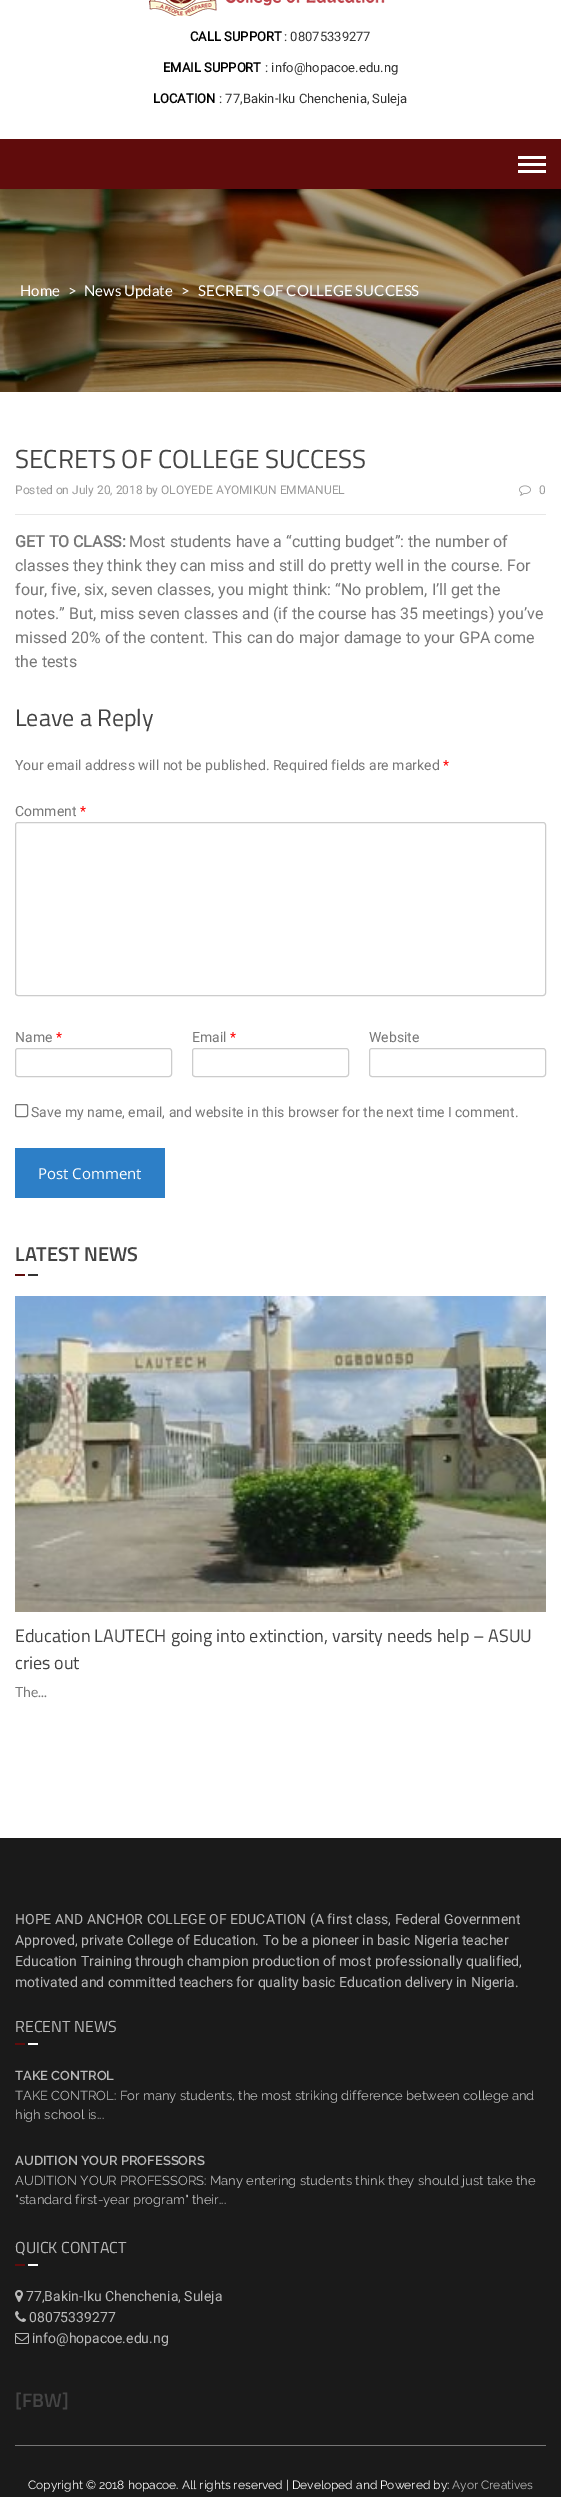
%!PS-Adobe-3.0
%%BoundingBox: 0 0 561 2497
%%LanguageLevel: 3
%%Pages: 1
%%EndComments
%%BeginProlog
/S { stroke } bind def
/fn { [ exch dup neg 0 0 3 -1 roll 0 0 ] selectfont } def
/tx { moveto show } def
/bx { rectfill } def
/rr { 5 dict begin { /r /h /w /y /x } { exch def } forall
  x r add y moveto x w add y 2 copy h add r arct x w add y h add x 1 index r arct
  x y h add x y r arct x y 2 copy exch w add exch r arct closepath end } def
/im { 5 dict begin { /h /w /y /x /name } { exch def } forall
  gsave x y translate w h scale
  w h 8 [w 0 0 h 0 0] name (r) file false 3 colorimage grestore end } def
%%EndProlog
%%BeginSetup
<< /PageSize [561 2497] >> setpagedevice
%%EndSetup
%%Page: 1 1
0 2497 translate 1 -1 scale
4 setmiterlimit
1 setgray
0 0 561 2497 bx
(image0.raw) 149 0 236 16 im
/Roboto-Bold 13 fn
0 setgray
(CALL SUPPORT) 190 41 tx
/Roboto-Regular 13 fn
0.2 setgray
(: 08075339277) 284 41 tx
/Roboto-Bold 13 fn
0 setgray
(EMAIL SUPPORT) 163 72 tx
/Roboto-Regular 13 fn
0.2 setgray
(: info@hopacoe.edu.ng) 265 72 tx
/Roboto-Bold 13 fn
0 setgray
(LOCATION) 153 103 tx
/Roboto-Regular 13 fn
0.2 setgray
(: 77,Bakin-Iku Chenchenia, Suleja) 219 103 tx
0.376 0.047 0.047 setrgbcolor
0 139 561 50 bx
1 setgray
518 156 28 3 bx
518 163 28 3 bx
518 170 28 3 bx
(image1.raw) 0 189 561 203 im
/Lato-Regular 15 fn
(Home) 20 296 tx
(>) 68 296 tx
(News Update) 84 296 tx
(>) 181 296 tx
(SECRETS OF COLLEGE SUCCESS) 198 296 tx
/TitilliumWeb-Regular 26 fn
0.267 setgray
(SECRETS OF COLLEGE SUCCESS) 15 468 tx
0.906 setgray
15 514 531 1 bx
/Roboto-Regular 12 fn
0.6 setgray
(Posted on July 20, 2018 by OLOYEDE AYOMIKUN EMMANUEL) 15 494 tx
(image2.raw) 519 485 12 11 im
(0) 539 494 tx
/Roboto-Bold 16 fn
0.467 setgray
(GET TO CLASS:) 15 547 tx
/Roboto-Regular 16 fn
(Most students have a “cutting budget”: the number of) 129 547 tx
(classes they think they can miss and still do pretty well in the course. For) 15 571 tx
(four, five, six, seven classes, you might think: “No problem, I’ll get the) 15 595 tx
(notes.” But, miss seven classes and \(if the course has 35 meetings\) you’ve) 15 619 tx
(missed 20% of the content. This can do major damage to your GPA come) 15 643 tx
(the tests) 15 667 tx
/TitilliumWeb-Regular 24 fn
0.267 setgray
(Leave a Reply) 15 726 tx
/Roboto-Regular 14 fn
0.467 setgray
(Your email address will not be published. Required fields are marked) 15 770 tx
1 0 0 setrgbcolor
(*) 443 770 tx
0.467 setgray
(Comment) 15 816 tx
1 0 0 setrgbcolor
(*) 80 816 tx
0.8 setgray
15.5 822.5 530 173 2.5 rr S
0.467 setgray
(Name) 15 1042 tx
1 0 0 setrgbcolor
(*) 56 1042 tx
0.8 setgray
15.5 1048.5 156 28 2.5 rr S
0.467 setgray
(Email) 192 1042 tx
1 0 0 setrgbcolor
(*) 230 1042 tx
0.8 setgray
192.5 1048.5 156 28 2.5 rr S
0.467 setgray
(Website) 369 1042 tx
0.8 setgray
369.5 1048.5 176 28 2.5 rr S
0.463 setgray
15.5 1104.5 12 12 1.5 rr S
0.467 setgray
(Save my name, email, and website in this browser for the next time I comment.) 31 1117 tx
0.176 0.498 0.78 setrgbcolor
15 1148 150 50 bx
/OpenSans-Regular 15 fn
1 setgray
(Post Comment) 38 1179 tx
/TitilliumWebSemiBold-SemiBold 20 fn
0.267 setgray
(LATEST NEWS) 15 1261 tx
0.376 0.047 0.047 setrgbcolor
15 1274 10 2 bx
0.2 setgray
28 1274 10 2 bx
(image3.raw) 15 1296 531 316 im
/TitilliumWeb-Regular 18 fn
0.267 setgray
(Education LAUTECH going into extinction, varsity needs help – ASUU) 15 1642 tx
(cries out) 15 1669 tx
/Lato-Regular 14 fn
0.467 setgray
(The...) 15 1697 tx
0.102 setgray
0 1838 561 659 bx
0.463 setgray
15 2445 531 1 bx
/Roboto-Regular 14 fn
0.729 setgray
(HOPE AND ANCHOR COLLEGE OF EDUCATION \(A first class, Federal Government) 15 1924 tx
(Approved, private College of Education. To be a pioneer in basic Nigeria teacher) 15 1945 tx
(Education Training through champion production of most professionally qualified,) 15 1966 tx
(motivated and committed teachers for quality basic Education delivery in Nigeria.) 15 1987 tx
/TitilliumWeb-Regular 16 fn
(RECENT NEWS) 15 2032 tx
0.376 0.047 0.047 setrgbcolor
15 2043 10 2 bx
1 setgray
28 2043 10 2 bx
/Raleway-SemiBold 13 fn
0.729 setgray
(TAKE CONTROL) 15 2080 tx
/Raleway-Regular 13 fn
(TAKE CONTROL: For many students, the most striking difference between college and) 15 2100 tx
(high school is...) 15 2119 tx
/Raleway-SemiBold 13 fn
(AUDITION YOUR PROFESSORS) 15 2165 tx
/Raleway-Regular 13 fn
(AUDITION YOUR PROFESSORS: Many entering students think they should just take the) 15 2185 tx
("standard first-year program" their...) 15 2204 tx
/TitilliumWeb-Regular 16 fn
(QUICK CONTACT) 15 2253 tx
0.376 0.047 0.047 setrgbcolor
15 2264 10 2 bx
1 setgray
28 2264 10 2 bx
(image4.raw) 15 2290 8 12 im
/Roboto-Regular 14 fn
0.729 setgray
(77,Bakin-Iku Chenchenia, Suleja) 26 2301 tx
(image5.raw) 15 2311 11 11 im
(08075339277) 29 2322 tx
(image6.raw) 15 2333 14 11 im
(info@hopacoe.edu.ng) 32 2343 tx
/TitilliumWebSemiBold-SemiBold 19.5 fn
0.267 setgray
([FBW]) 15 2407 tx
/Raleway-Regular 12 fn
1 setgray
(Copyright © 2018 hopacoe. All rights reserved | Developed and Powered by:) 28 2489 tx
0.729 setgray
(Ayor Creatives) 452 2489 tx
showpage
%%EOF
